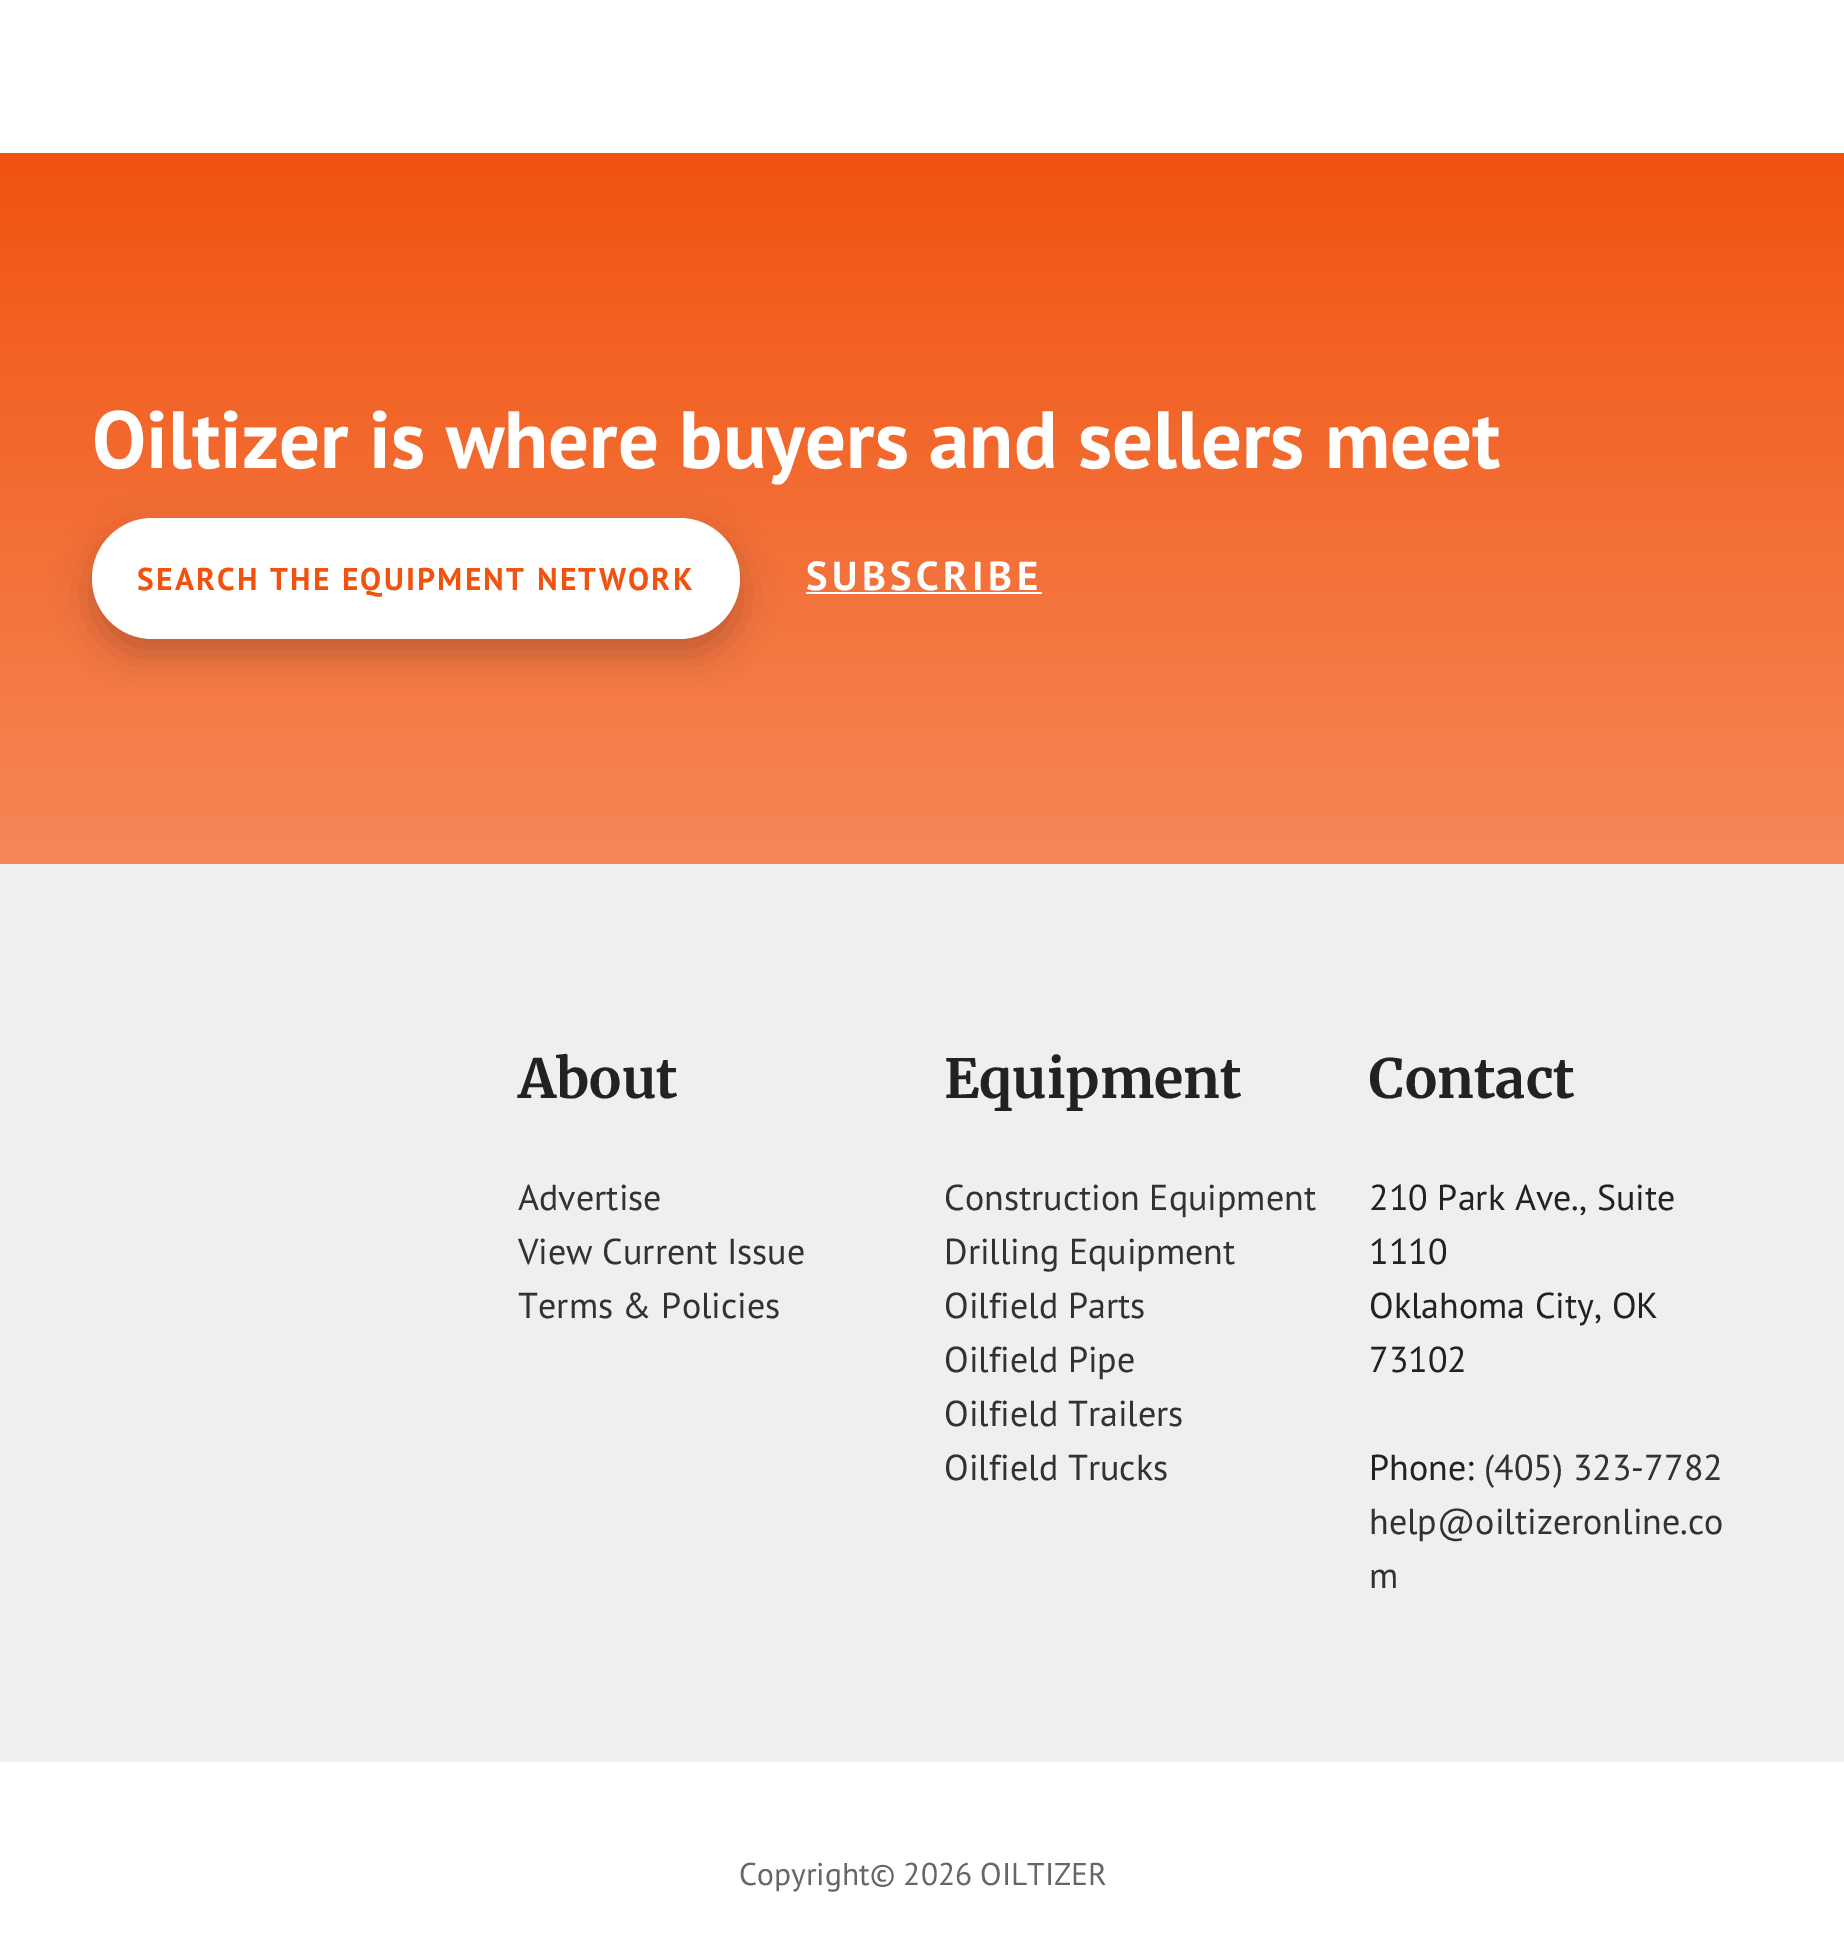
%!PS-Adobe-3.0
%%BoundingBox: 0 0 1844 1935
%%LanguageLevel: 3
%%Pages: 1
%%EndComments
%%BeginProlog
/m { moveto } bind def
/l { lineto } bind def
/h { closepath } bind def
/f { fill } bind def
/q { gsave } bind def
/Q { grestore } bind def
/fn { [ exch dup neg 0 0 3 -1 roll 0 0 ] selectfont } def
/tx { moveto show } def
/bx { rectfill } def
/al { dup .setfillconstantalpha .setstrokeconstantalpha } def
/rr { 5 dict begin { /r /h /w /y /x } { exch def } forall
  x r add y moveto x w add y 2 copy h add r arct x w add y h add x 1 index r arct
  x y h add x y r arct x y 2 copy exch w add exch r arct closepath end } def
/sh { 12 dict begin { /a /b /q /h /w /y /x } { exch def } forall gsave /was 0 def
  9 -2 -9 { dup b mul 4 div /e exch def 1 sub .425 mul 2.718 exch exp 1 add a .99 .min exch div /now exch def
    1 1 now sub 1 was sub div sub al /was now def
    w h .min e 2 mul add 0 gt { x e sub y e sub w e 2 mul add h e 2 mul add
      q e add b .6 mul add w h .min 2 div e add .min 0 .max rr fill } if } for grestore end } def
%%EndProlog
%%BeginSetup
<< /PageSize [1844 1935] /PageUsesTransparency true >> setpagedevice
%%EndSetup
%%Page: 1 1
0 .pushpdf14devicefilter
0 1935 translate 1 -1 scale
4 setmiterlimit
1 setgray
0 0 1844 1935 bx
q 0 153 m 1844 153 l 1844 864 l 0 864 l h clip newpath
<< /ShadingType 2 /ColorSpace /DeviceRGB /Coords [923 153 923 864] /Extend [true true] /Function << /FunctionType 2 /Domain [0 1] /C0 [0.945 0.325 0.059] /C1 [0.961 0.529 0.341] /N 1 >> >> shfill Q
/PTSans-Bold 81 fn
(Oiltizer is where buyers and sellers meet) 92 468 tx
0 setgray
92 533 648 122 61 18 0.2 sh
1 setgray
92 518 648 121 60.5 rr f
/PTSans-Bold 31.5 fn
0.945 0.325 0.059 setrgbcolor
137 590 m 2.25 0 (SEARCH THE EQUIPMENT NETWORK) ashow
/PTSans-Bold 40.5 fn
1 setgray
806 590 m 4.5 0 (SUBSCRIBE) ashow
806 592 236 2 bx
0.937 setgray
0 864 1844 898 bx
/Merriweather-Bold 54 fn
0.133 setgray
(About) 518 1098 tx
/PTSans-Regular 36 fn
0.196 setgray
(Advertise) 518 1210 tx
(View Current Issue) 518 1264 tx
(Terms & Policies) 518 1318 tx
/Merriweather-Bold 54 fn
0.133 setgray
(Equipment) 944 1098 tx
/PTSans-Regular 36 fn
0.196 setgray
(Construction Equipment) 944 1210 tx
(Drilling Equipment) 944 1264 tx
(Oilfield Parts) 944 1318 tx
(Oilfield Pipe) 944 1372 tx
(Oilfield Trailers) 944 1426 tx
(Oilfield Trucks) 944 1480 tx
/Merriweather-Bold 54 fn
0.133 setgray
(Contact) 1369 1098 tx
/PTSans-Regular 36 fn
(210 Park Ave., Suite) 1369 1210 tx
(1110) 1369 1264 tx
(Oklahoma City, OK) 1369 1318 tx
(73102) 1369 1372 tx
(Phone:) 1369 1480 tx
0.196 setgray
(\(405\) 323-7782) 1484 1480 tx
(help@oiltizeronline.co) 1369 1534 tx
(m) 1369 1588 tx
/PTSans-Regular 31.5 fn
0.4 setgray
(Copyright© 2026 OILTIZER) 739 1885 tx
.poppdf14devicefilter showpage
%%EOF
